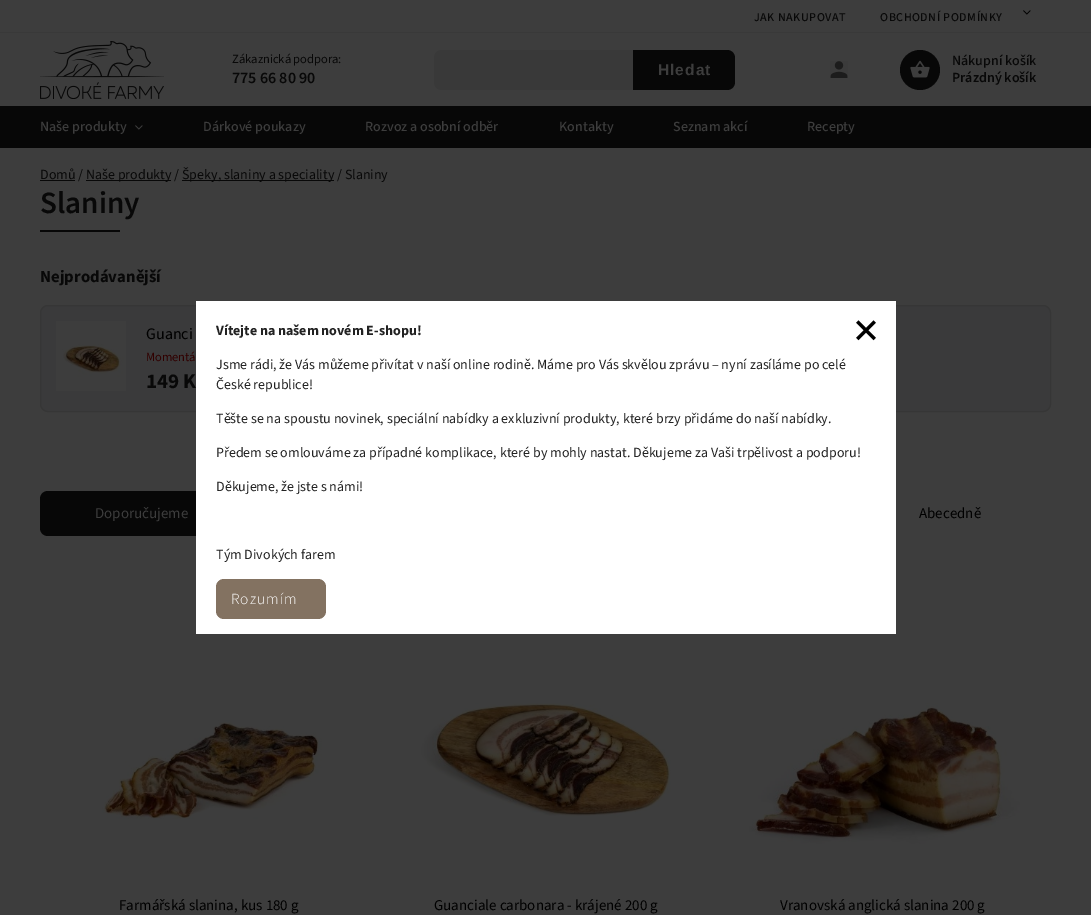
%!PS-Adobe-3.0
%%BoundingBox: 0 0 1091 915
%%LanguageLevel: 3
%%Pages: 1
%%EndComments
%%BeginProlog
/m { moveto } bind def
/l { lineto } bind def
/c { curveto } bind def
/h { closepath } bind def
/f { fill } bind def
/S { stroke } bind def
/q { gsave } bind def
/Q { grestore } bind def
/fn { [ exch dup neg 0 0 3 -1 roll 0 0 ] selectfont } def
/tx { moveto show } def
/bx { rectfill } def
/ci { newpath 0 360 arc closepath } def
/rr { 5 dict begin { /r /h /w /y /x } { exch def } forall
  x r add y moveto x w add y 2 copy h add r arct x w add y h add x 1 index r arct
  x y h add x y r arct x y 2 copy exch w add exch r arct closepath end } def
/im { 5 dict begin { /h /w /y /x /name } { exch def } forall
  gsave x y translate w h scale
  w h 8 [w 0 0 h 0 0] name (r) file false 3 colorimage grestore end } def
%%EndProlog
%%BeginSetup
<< /PageSize [1091 915] >> setpagedevice
%%EndSetup
%%Page: 1 1
0 915 translate 1 -1 scale
4 setmiterlimit
0.239 setgray
0 0 1091 915 bx
0.224 setgray
0 32 1091 1 bx
/SourceSans3-Medium 12 fn
0.031 setgray
754 21 m 0.5 0 (JAK NAKUPOVAT) ashow
880 21 m 0.5 0 (OBCHODNÍ PODMÍNKY) ashow
(image0.raw) 1023 10 8 5 im
(image1.raw) 40 41 124 58 im
/SourceSans3-Regular 12.5 fn
(Zákaznická podpora:) 232 63 tx
/SourceSans3-SemiBold 16 fn
(775 66 80 90) 232 83 tx
0.224 setgray
442 50 m 634 50 l 634 90 l 442 90 l 437.5 90 434 86.5 434 82 c 434 58 l 434 53.5 437.5 50 442 50 c h f
0.027 setgray
633 50 m 727 50 l 731.5 50 735 53.5 735 58 c 735 82 l 735 86.5 731.5 90 727 90 c 633 90 l h f
/LiberationSans-Bold 15.5 fn
0.239 setgray
658 75 m 1 0 (Hledat) ashow
(image2.raw) 830 61 18 17 im
0.027 setgray
920 70 20 ci f
(image3.raw) 910 60 20 18 im
/SourceSans3-Medium 14 fn
0.031 setgray
(Nákupní košík) 952 65 tx
/SourceSans3-SemiBold 14 fn
(Prázdný košík) 952 82 tx
0.027 setgray
0 106 1091 42 bx
/SourceSans3-Medium 14 fn
0.239 setgray
(Naše produkty) 40 131 tx
(image4.raw) 135 125 8 5 im
(Dárkové poukazy) 203 131 tx
(Rozvoz a osobní odběr) 365 131 tx
(Kontakty) 559 131 tx
(Seznam akcí) 673 131 tx
(Recepty) 807 131 tx
0.031 setgray
40 180 35 1 bx
/SourceSans3-Regular 14 fn
(Domů /) 40 179 tx
86 180 85 1 bx
(Naše produkty /) 86 179 tx
182 180 152 1 bx
(Špeky, slaniny a speciality / Slaniny) 182 179 tx
/SourceSans3-SemiBold 31 fn
(Slaniny) 40 213 tx
0.027 setgray
40 230 80 2 bx
/SourceSans3-Bold 16.75 fn
0.031 setgray
(Nejprodávanější) 40 282 tx
0.227 0.227 0.231 setrgbcolor
40.5 305.5 499 106 7.5 rr q f Q
0.212 setgray
S
(image5.raw) 56 321 70 70 im
/SourceSans3-Regular 16 fn
0 setgray
(Guanci) 146 339 tx
/SourceSans3-Regular 12.5 fn
0.192 0 0 setrgbcolor
(Momentá) 146 361 tx
/SourceSans3-Bold 21 fn
0.031 setgray
(149 K) 146 388 tx
0.227 0.227 0.231 setrgbcolor
552.5 305.5 498 106 7.5 rr q f Q
0.212 setgray
S
0.027 setgray
48 491 m 242 491 l 242 536 l 48 536 l 43.5 536 40 532.5 40 528 c 40 499 l 40 494.5 43.5 491 48 491 c h f
/SourceSans3-Regular 15 fn
0.239 setgray
(Doporučujeme) 95 518 tx
0 setgray
(Abecedně) 919 518 tx
(image6.raw) 102 720 220 99 im
(Farmářská slanina, kus 180 g) 119 910 tx
(image7.raw) 421 703 250 115 im
(Guanciale carbonara - krájené 200 g) 434 910 tx
(image8.raw) 749 703 271 141 im
(Vranovská anglická slanina 200 g) 780 910 tx
1 setgray
196 301 700 333 bx
/SourceSans3-Bold 14 fn
0.133 setgray
(Vítejte na našem novém E-shopu!) 216 335 tx
/SourceSans3-Regular 14 fn
(Jsme rádi, že Vás můžeme přivítat v naší online rodině. Máme pro Vás skvělou zprávu – nyní zasíláme po celé) 216 369 tx
(České republice!) 216 389 tx
(Těšte se na spoustu novinek, speciální nabídky a exkluzivní produkty, které brzy přidáme do naší nabídky.) 216 423 tx
(Předem se omlouváme za případné komplikace, které by mohly nastat. Děkujeme za Vaši trpělivost a podporu!) 216 457 tx
(Děkujeme, že jste s námi!) 216 491 tx
(Tým Divokých farem) 216 559 tx
0.514 0.447 0.38 setrgbcolor
216 579 110 40 8 rr f
/SourceSans3-Light 15.5 fn
1 setgray
231 604 m 1 0 (Rozumím) ashow
(image9.raw) 856 320 20 21 im
showpage
%%EOF
